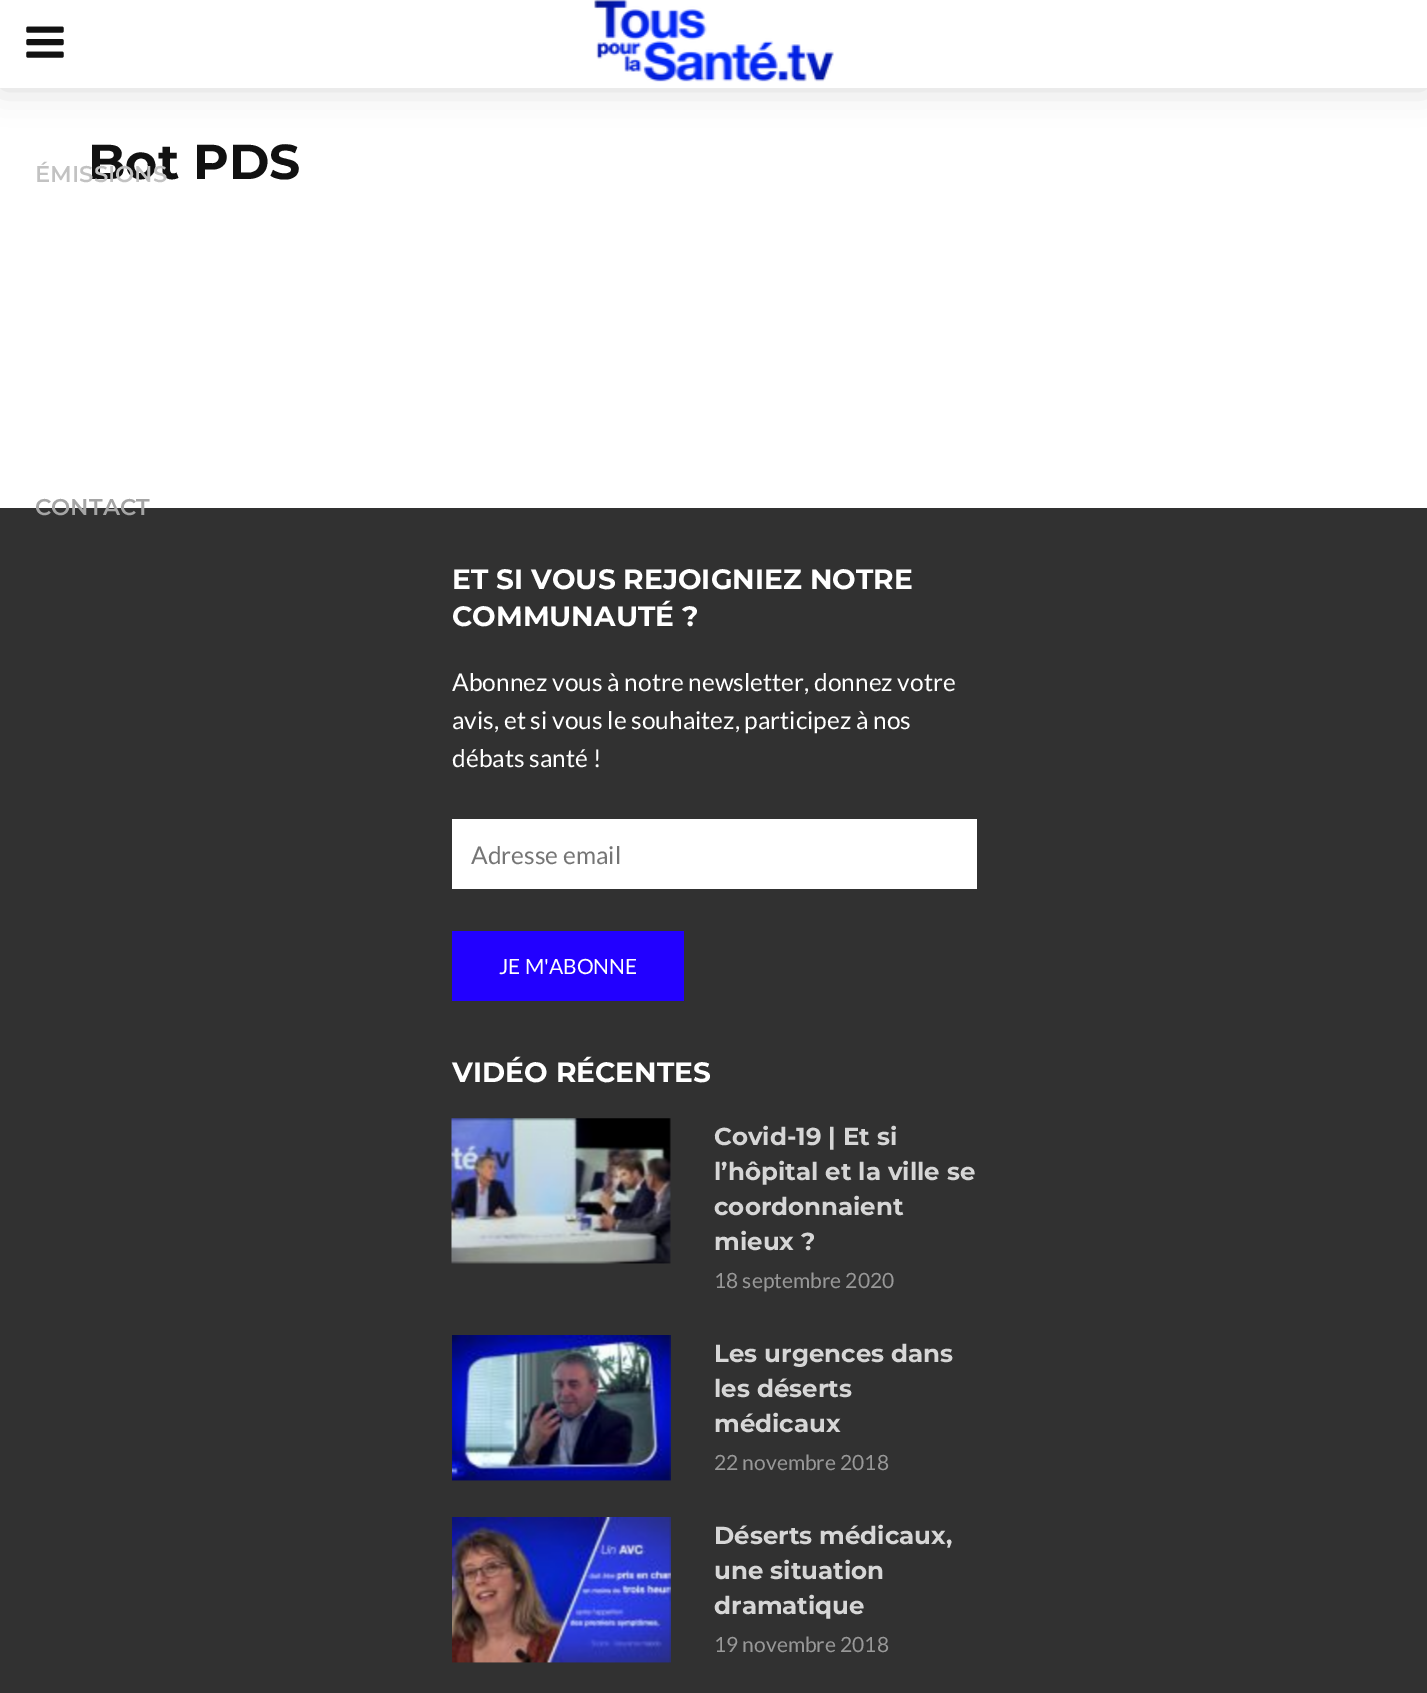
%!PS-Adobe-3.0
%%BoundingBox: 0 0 1427 1693
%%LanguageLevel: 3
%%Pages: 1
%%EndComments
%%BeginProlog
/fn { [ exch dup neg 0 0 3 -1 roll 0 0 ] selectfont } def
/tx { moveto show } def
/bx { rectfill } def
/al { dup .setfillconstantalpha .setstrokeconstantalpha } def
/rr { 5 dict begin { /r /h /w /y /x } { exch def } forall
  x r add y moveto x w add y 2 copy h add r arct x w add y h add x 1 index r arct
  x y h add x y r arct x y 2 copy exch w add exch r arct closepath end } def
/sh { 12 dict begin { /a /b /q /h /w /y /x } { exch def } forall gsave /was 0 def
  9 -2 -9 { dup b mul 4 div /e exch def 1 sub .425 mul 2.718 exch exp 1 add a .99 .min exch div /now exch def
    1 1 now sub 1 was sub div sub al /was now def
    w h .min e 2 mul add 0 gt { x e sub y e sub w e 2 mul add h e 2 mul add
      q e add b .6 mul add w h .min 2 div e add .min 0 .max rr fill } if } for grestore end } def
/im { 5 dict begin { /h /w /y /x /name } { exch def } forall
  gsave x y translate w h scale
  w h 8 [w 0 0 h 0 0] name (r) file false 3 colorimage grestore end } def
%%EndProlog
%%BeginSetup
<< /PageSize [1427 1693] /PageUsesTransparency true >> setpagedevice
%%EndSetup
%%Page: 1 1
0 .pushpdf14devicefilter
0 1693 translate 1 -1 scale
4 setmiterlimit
1 setgray
0 0 1427 1693 bx
/Montserrat-Bold 49 fn
0.067 setgray
(Bot PDS) 88 179 tx
0 setgray
0 0 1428 88 0 17.5 0.15 sh
1 setgray
0 0 1427 88 bx
(image0.raw) 594 0 240 82 im
(image1.raw) 26 26 38 32 im
/Montserrat-SemiBold 22.75 fn
0.761 setgray
(ÉMISSIONS) 35 182 tx
0.192 setgray
0 508 1427 1185 bx
0.647 setgray
(CONTACT) 35 515 tx
/Montserrat-Bold 28 fn
1 setgray
(ET SI VOUS REJOIGNIEZ NOTRE) 452 589 tx
(COMMUNAUTÉ ?) 452 626 tx
/Lato-Regular 24.5 fn
(Abonnez vous à notre newsletter, donnez votre) 452 691 tx
(avis, et si vous le souhaitez, participez à nos) 452 729 tx
(débats santé !) 452 767 tx
452 819 525 70 bx
0.459 setgray
(Adresse email) 471 864 tx
0.133 0 1 setrgbcolor
452 931 232 70 bx
/Lato-Regular 21 fn
1 setgray
(JE M'ABONNE) 499 974 tx
/Montserrat-Bold 28 fn
(VIDÉO RÉCENTES) 452 1082 tx
(image2.raw) 451 1118 220 146 im
/Montserrat-Bold 24.5 fn
0.839 setgray
(Covid-19 | Et si) 714 1145 tx
(l’hôpital et la ville se) 714 1180 tx
(coordonnaient) 714 1215 tx
(mieux ?) 714 1250 tx
/Lato-Regular 21 fn
0.596 setgray
(18 septembre 2020) 714 1288 tx
(image3.raw) 452 1335 219 146 im
/Montserrat-Bold 24.5 fn
0.839 setgray
(Les urgences dans) 714 1362 tx
(les déserts) 714 1397 tx
(médicaux) 714 1432 tx
/Lato-Regular 21 fn
0.596 setgray
(22 novembre 2018) 714 1470 tx
(image4.raw) 452 1517 219 146 im
/Montserrat-Bold 24.5 fn
0.839 setgray
(Déserts médicaux,) 714 1544 tx
(une situation) 714 1579 tx
(dramatique) 714 1614 tx
/Lato-Regular 21 fn
0.596 setgray
(19 novembre 2018) 714 1652 tx
.poppdf14devicefilter showpage
%%EOF
